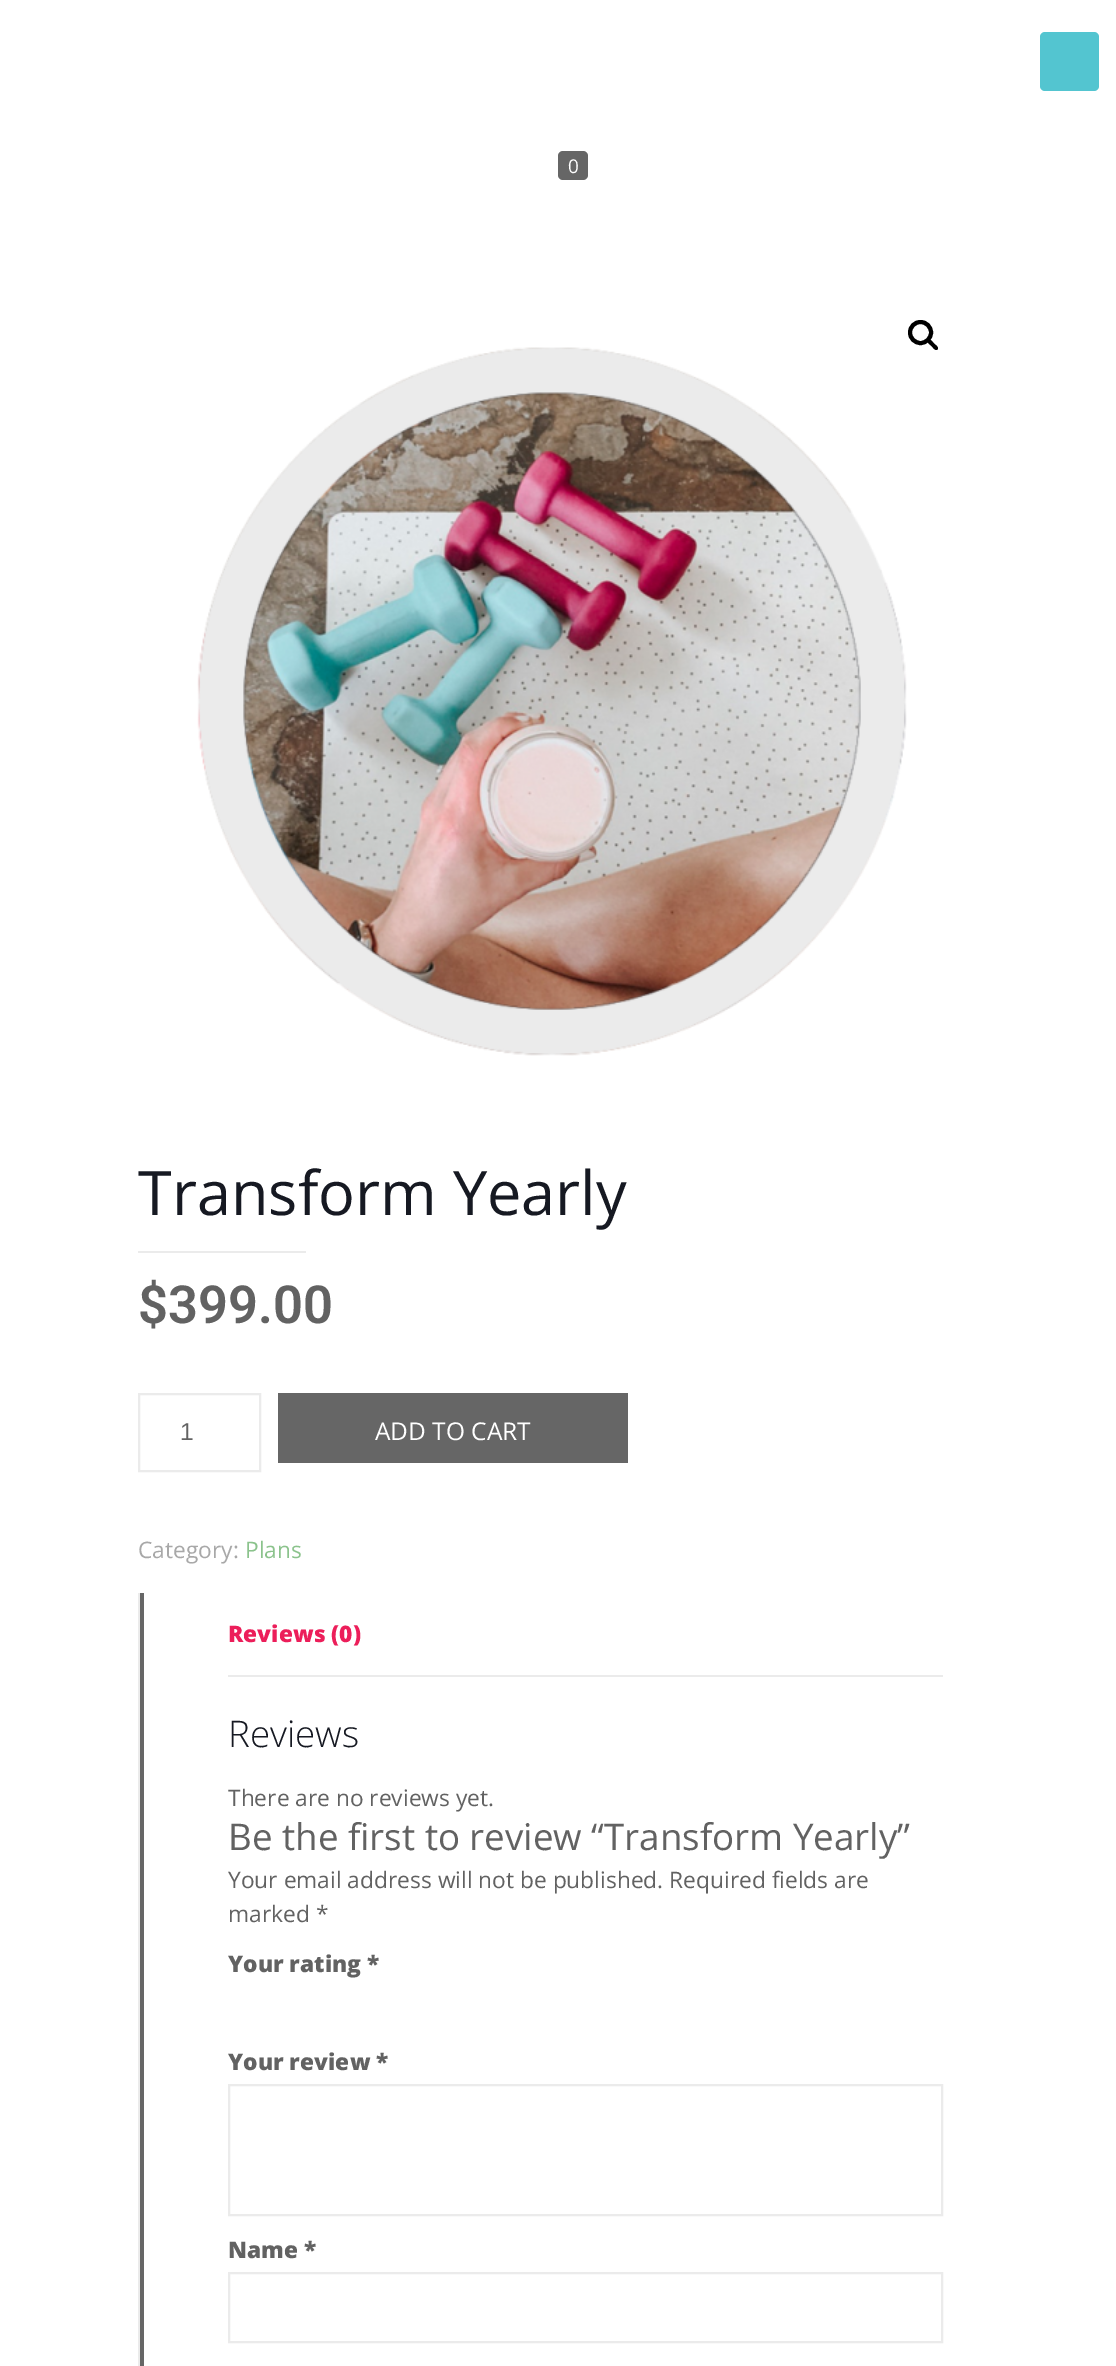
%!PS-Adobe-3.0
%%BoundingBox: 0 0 1116 2366
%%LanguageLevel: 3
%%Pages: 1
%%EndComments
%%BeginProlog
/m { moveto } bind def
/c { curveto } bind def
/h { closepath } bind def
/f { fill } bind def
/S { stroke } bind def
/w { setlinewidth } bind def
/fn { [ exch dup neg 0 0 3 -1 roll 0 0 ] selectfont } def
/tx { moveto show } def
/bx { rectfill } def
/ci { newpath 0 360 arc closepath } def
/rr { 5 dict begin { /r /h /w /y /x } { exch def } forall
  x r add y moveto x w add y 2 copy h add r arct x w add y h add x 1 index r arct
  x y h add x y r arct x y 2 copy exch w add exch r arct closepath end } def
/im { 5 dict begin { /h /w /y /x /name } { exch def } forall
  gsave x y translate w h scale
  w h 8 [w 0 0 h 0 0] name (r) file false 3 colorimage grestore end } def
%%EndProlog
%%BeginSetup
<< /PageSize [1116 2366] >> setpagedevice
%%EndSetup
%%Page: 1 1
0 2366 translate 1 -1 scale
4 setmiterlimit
1 setgray
0 0 1116 2366 bx
0.325 0.773 0.816 setrgbcolor
1040 32 59 59 5 rr f
0.4 setgray
558 151 30 29 5 rr f
/OpenSans-Regular 19 fn
1 setgray
(0) 568 173 tx
0 setgray
4 w
920.5 332.5 10.5 ci S
928 340 m 930 338 933 342.5 934 343.5 c 935 344.5 939.5 347.5 937.5 349.5 c 935.5 351.5 932.5 347 931.5 346 c 930.5 345 926 342 928 340 c h f
(image0.raw) 197 347 710 709 im
/OpenSans-Regular 61.25 fn
0.086 0.098 0.133 setrgbcolor
(Transform Yearly) 138 1215 tx
0.922 setgray
138 1251 168 2 bx
/Roboto-SemiBold 52.5 fn
0.384 setgray
($399.00) 138 1323 tx
0.922 setgray
2 w
139 1394 121 77 rectstroke
/LiberationSans-Regular 24.5 fn
0.384 setgray
(1) 180 1440 tx
0.4 setgray
278 1393 350 70 bx
/OpenSans-Regular 24.5 fn
1 setgray
(ADD TO CART) 375 1440 tx
/OpenSans-Regular 22.75 fn
0.659 setgray
(Category:) 138 1558 tx
0.545 0.765 0.549 setrgbcolor
(Plans) 245 1558 tx
0.922 setgray
138 1593 2 773 bx
0.4 setgray
140 1593 4 773 bx
/OpenSans-ExtraBold 22.75 fn
0.925 0.118 0.353 setrgbcolor
(Reviews \(0\)) 228 1642 tx
0.922 setgray
228 1675 715 2 bx
/OpenSans-Light 36.75 fn
0.086 0.098 0.133 setrgbcolor
(Reviews) 228 1747 tx
/OpenSans-Regular 22.75 fn
0.384 setgray
(There are no reviews yet.) 228 1806 tx
/OpenSans-Regular 36.75 fn
(Be the first to review “Transform Yearly”) 228 1850 tx
/OpenSans-Regular 22.75 fn
(Your email address will not be published. Required fields are) 228 1888 tx
(marked *) 228 1922 tx
/OpenSans-ExtraBold 22.75 fn
(Your rating *) 228 1972 tx
(Your review *) 228 2070 tx
0.922 setgray
229 2085 713 130 rectstroke
0.384 setgray
(Name *) 228 2258 tx
0.922 setgray
229 2273 713 69 rectstroke
showpage
%%EOF
